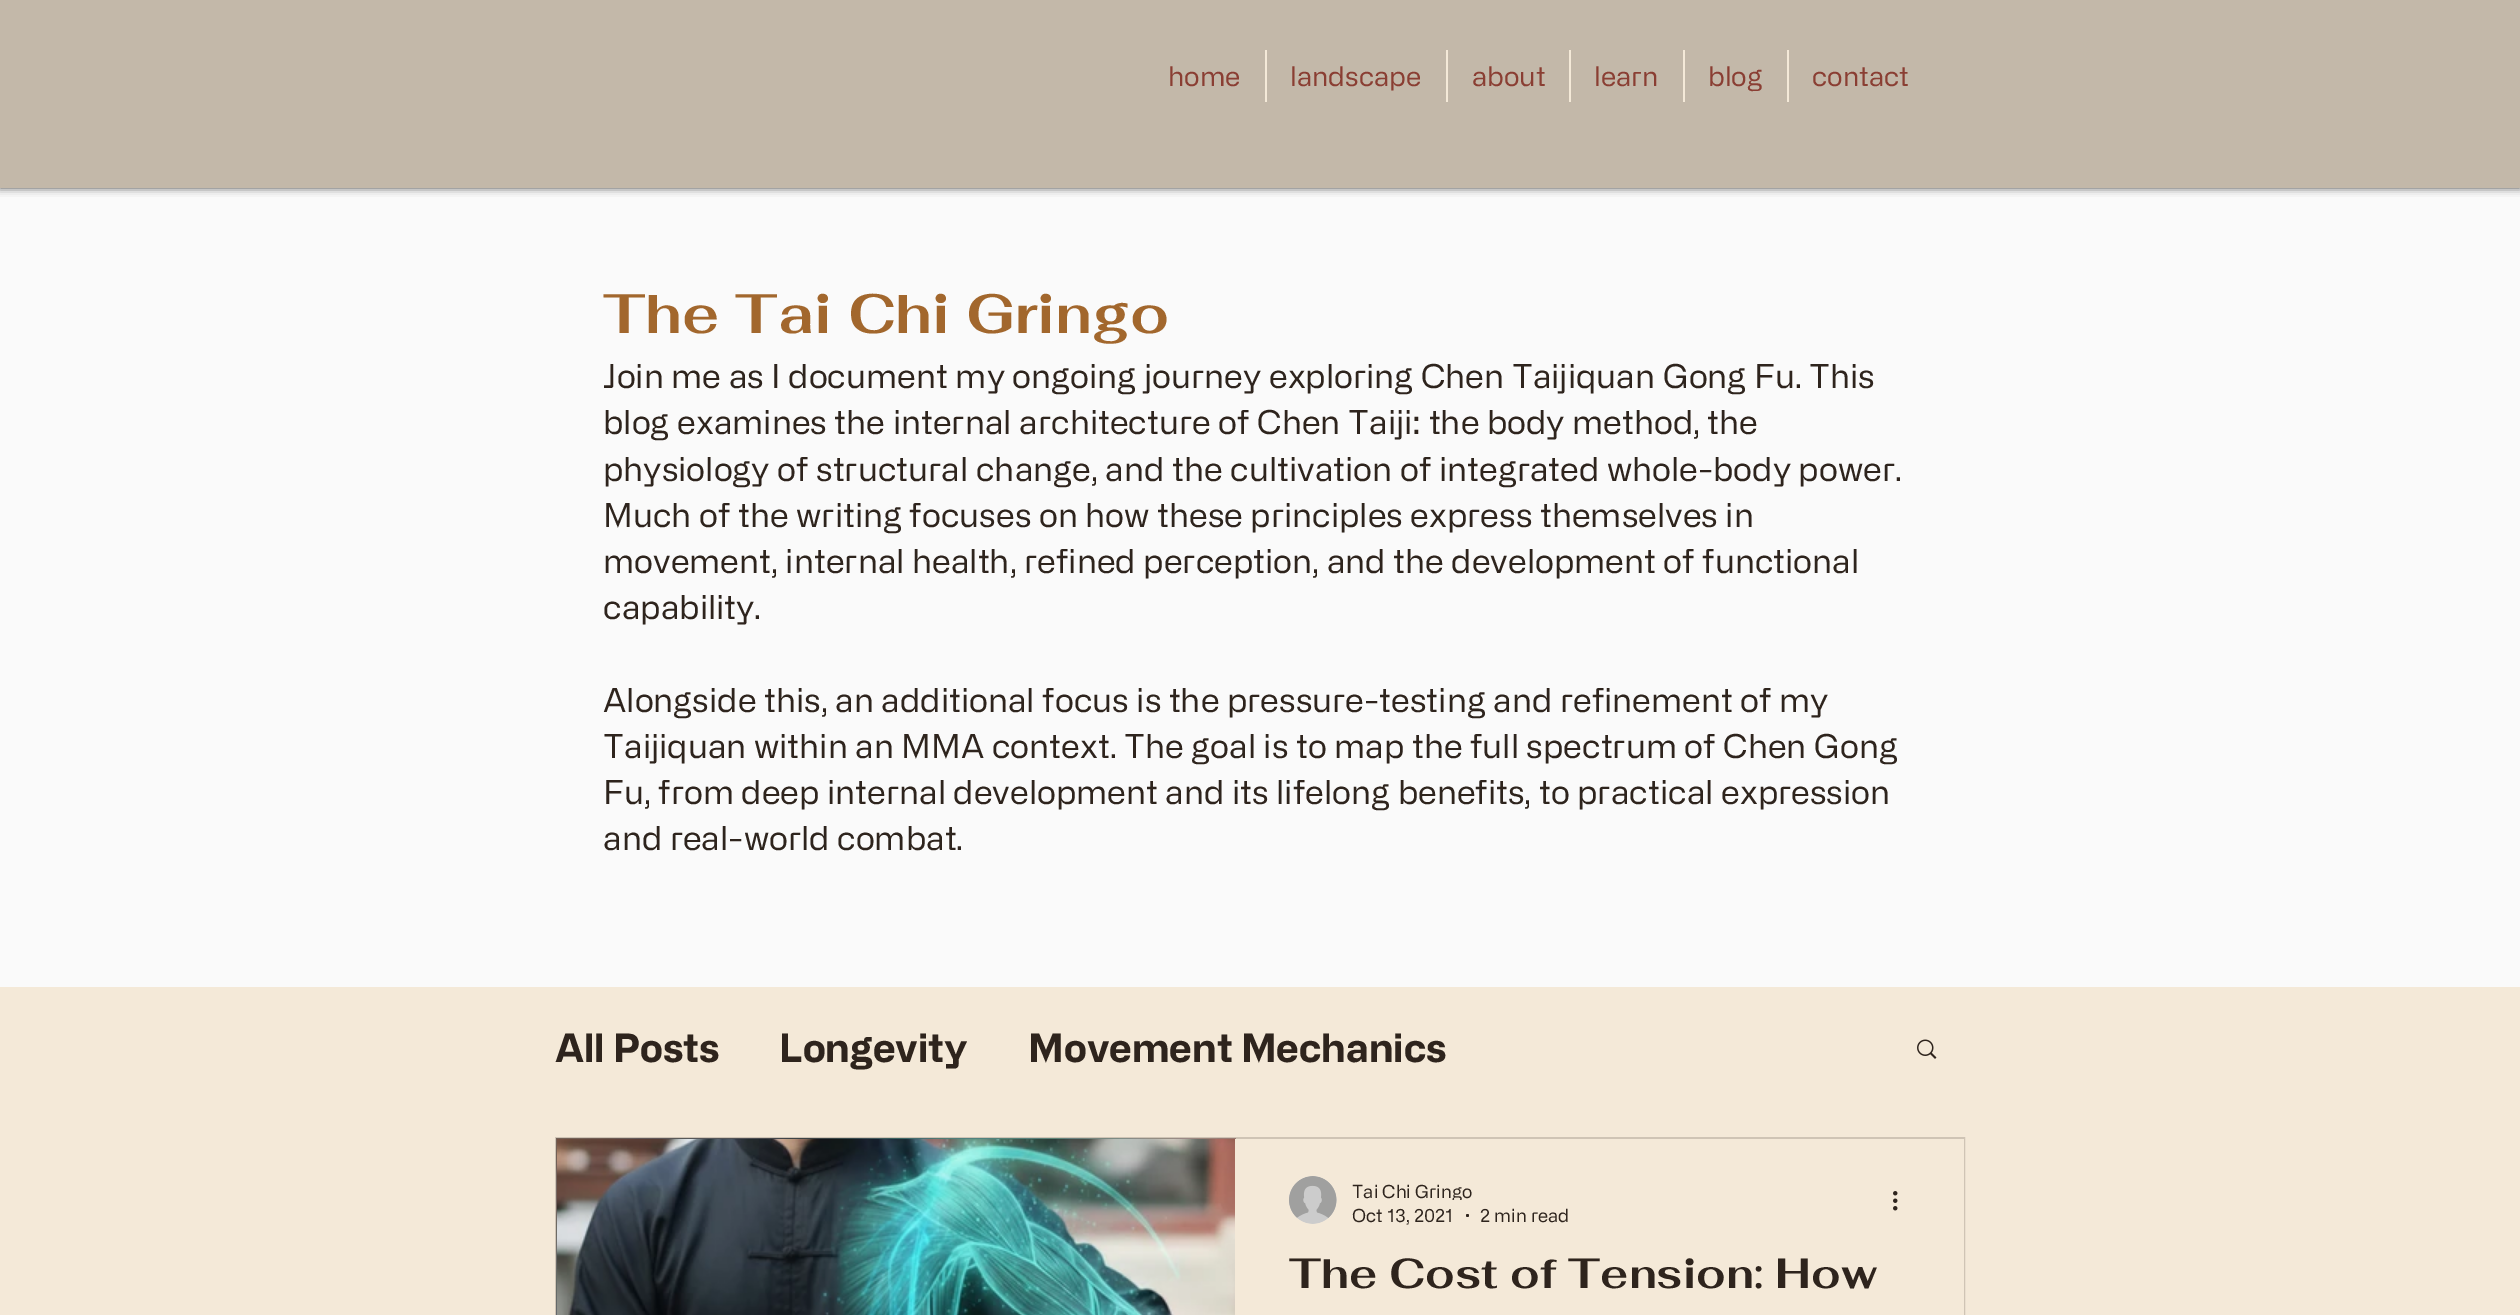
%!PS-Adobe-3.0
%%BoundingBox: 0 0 2520 1315
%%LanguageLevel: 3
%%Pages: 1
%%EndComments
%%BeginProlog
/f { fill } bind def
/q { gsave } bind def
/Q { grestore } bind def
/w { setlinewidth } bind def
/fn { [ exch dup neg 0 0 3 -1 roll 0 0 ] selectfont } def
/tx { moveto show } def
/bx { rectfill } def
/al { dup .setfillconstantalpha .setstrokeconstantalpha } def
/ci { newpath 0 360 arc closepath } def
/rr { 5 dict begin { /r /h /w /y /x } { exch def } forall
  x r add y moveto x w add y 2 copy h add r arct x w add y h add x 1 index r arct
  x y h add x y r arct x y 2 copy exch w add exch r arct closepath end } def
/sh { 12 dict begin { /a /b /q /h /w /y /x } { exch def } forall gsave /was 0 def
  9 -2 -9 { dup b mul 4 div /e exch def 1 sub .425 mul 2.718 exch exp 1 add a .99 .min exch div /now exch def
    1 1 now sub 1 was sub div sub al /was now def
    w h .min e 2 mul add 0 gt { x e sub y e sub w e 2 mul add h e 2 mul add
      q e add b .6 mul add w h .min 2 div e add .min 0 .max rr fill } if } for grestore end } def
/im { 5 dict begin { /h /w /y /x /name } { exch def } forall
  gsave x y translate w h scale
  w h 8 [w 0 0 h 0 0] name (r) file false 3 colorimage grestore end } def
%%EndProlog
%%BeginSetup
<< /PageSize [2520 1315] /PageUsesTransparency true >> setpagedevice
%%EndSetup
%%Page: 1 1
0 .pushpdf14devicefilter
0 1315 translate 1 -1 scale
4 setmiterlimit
0.957 0.914 0.847 setrgbcolor
0 0 2520 1315 bx
0.98 setgray
0 188 2520 799 bx
0 setgray
0 0 2520 188 0 4 0.7 sh
0.765 0.722 0.663 setrgbcolor
0 0 2520 188 bx
/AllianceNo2-Regular 27 fn
0.541 0.243 0.2 setrgbcolor
(home) 1168 86 tx
0.957 0.914 0.847 setrgbcolor
1265 50 2 52 bx
0.541 0.243 0.2 setrgbcolor
(landscape) 1290 86 tx
0.957 0.914 0.847 setrgbcolor
1446 50 2 52 bx
0.541 0.243 0.2 setrgbcolor
(about) 1472 86 tx
0.957 0.914 0.847 setrgbcolor
1569 50 2 52 bx
0.541 0.243 0.2 setrgbcolor
(learn) 1594 86 tx
0.957 0.914 0.847 setrgbcolor
1683 50 2 52 bx
0.541 0.243 0.2 setrgbcolor
(blog) 1708 86 tx
0.957 0.914 0.847 setrgbcolor
1787 50 2 52 bx
0.541 0.243 0.2 setrgbcolor
(contact) 1812 86 tx
/Fahkwang-Bold 55.5 fn
0.635 0.404 0.176 setrgbcolor
(The Tai Chi Gringo) 603 333 tx
/AllianceNo2-Regular 33 fn
0.18 0.141 0.114 setrgbcolor
(Join me as I document my ongoing journey exploring Chen Taijiquan Gong Fu. This) 603 388 tx
(blog examines the internal architecture of Chen Taiji: the body method, the) 603 434 tx
(physiology of structural change, and the cultivation of integrated whole-body power.) 603 481 tx
(Much of the writing focuses on how these principles express themselves in) 603 527 tx
(movement, internal health, refined perception, and the development of functional) 603 573 tx
(capability.) 603 619 tx
(Alongside this, an additional focus is the pressure-testing and refinement of my) 603 712 tx
(Taijiquan within an MMA context. The goal is to map the full spectrum of Chen Gong) 603 758 tx
(Fu, from deep internal development and its lifelong benefits, to practical expression) 603 804 tx
(and real-world combat.) 603 850 tx
/AllianceNo2-Bold 39 fn
(All Posts) 555 1062 tx
(Longevity) 779 1062 tx
(Movement Mechanics) 1028 1062 tx
(image0.raw) 1917 1039 20 20 im
0.812 0.769 0.71 setrgbcolor
2 w
556 1138 1408 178 rectstroke
(image1.raw) 556 1138 680 177 im
(image2.raw) 557 1139 678 176 im
0.957 0.914 0.847 setrgbcolor
1235 1139 729 176 bx
(image3.raw) 1289 1176 48 48 im
q
1352 1179 120 21 rectclip
/AllianceNo2-Regular 18 fn
0.18 0.141 0.114 setrgbcolor
(Tai Chi Gringo) 1352 1198 tx
Q
/AllianceNo2-Regular 18 fn
0.18 0.141 0.114 setrgbcolor
(Oct 13, 2021) 1352 1222 tx
1467.5 1215.5 1.5 ci f
(2 min read) 1480 1222 tx
(image4.raw) 1893 1191 5 20 im
q
1289 1245 621 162 rectclip
/Fahkwang-Bold 42 fn
(The Cost of Tension: How) 1289 1288 tx
Q
.poppdf14devicefilter showpage
%%EOF
